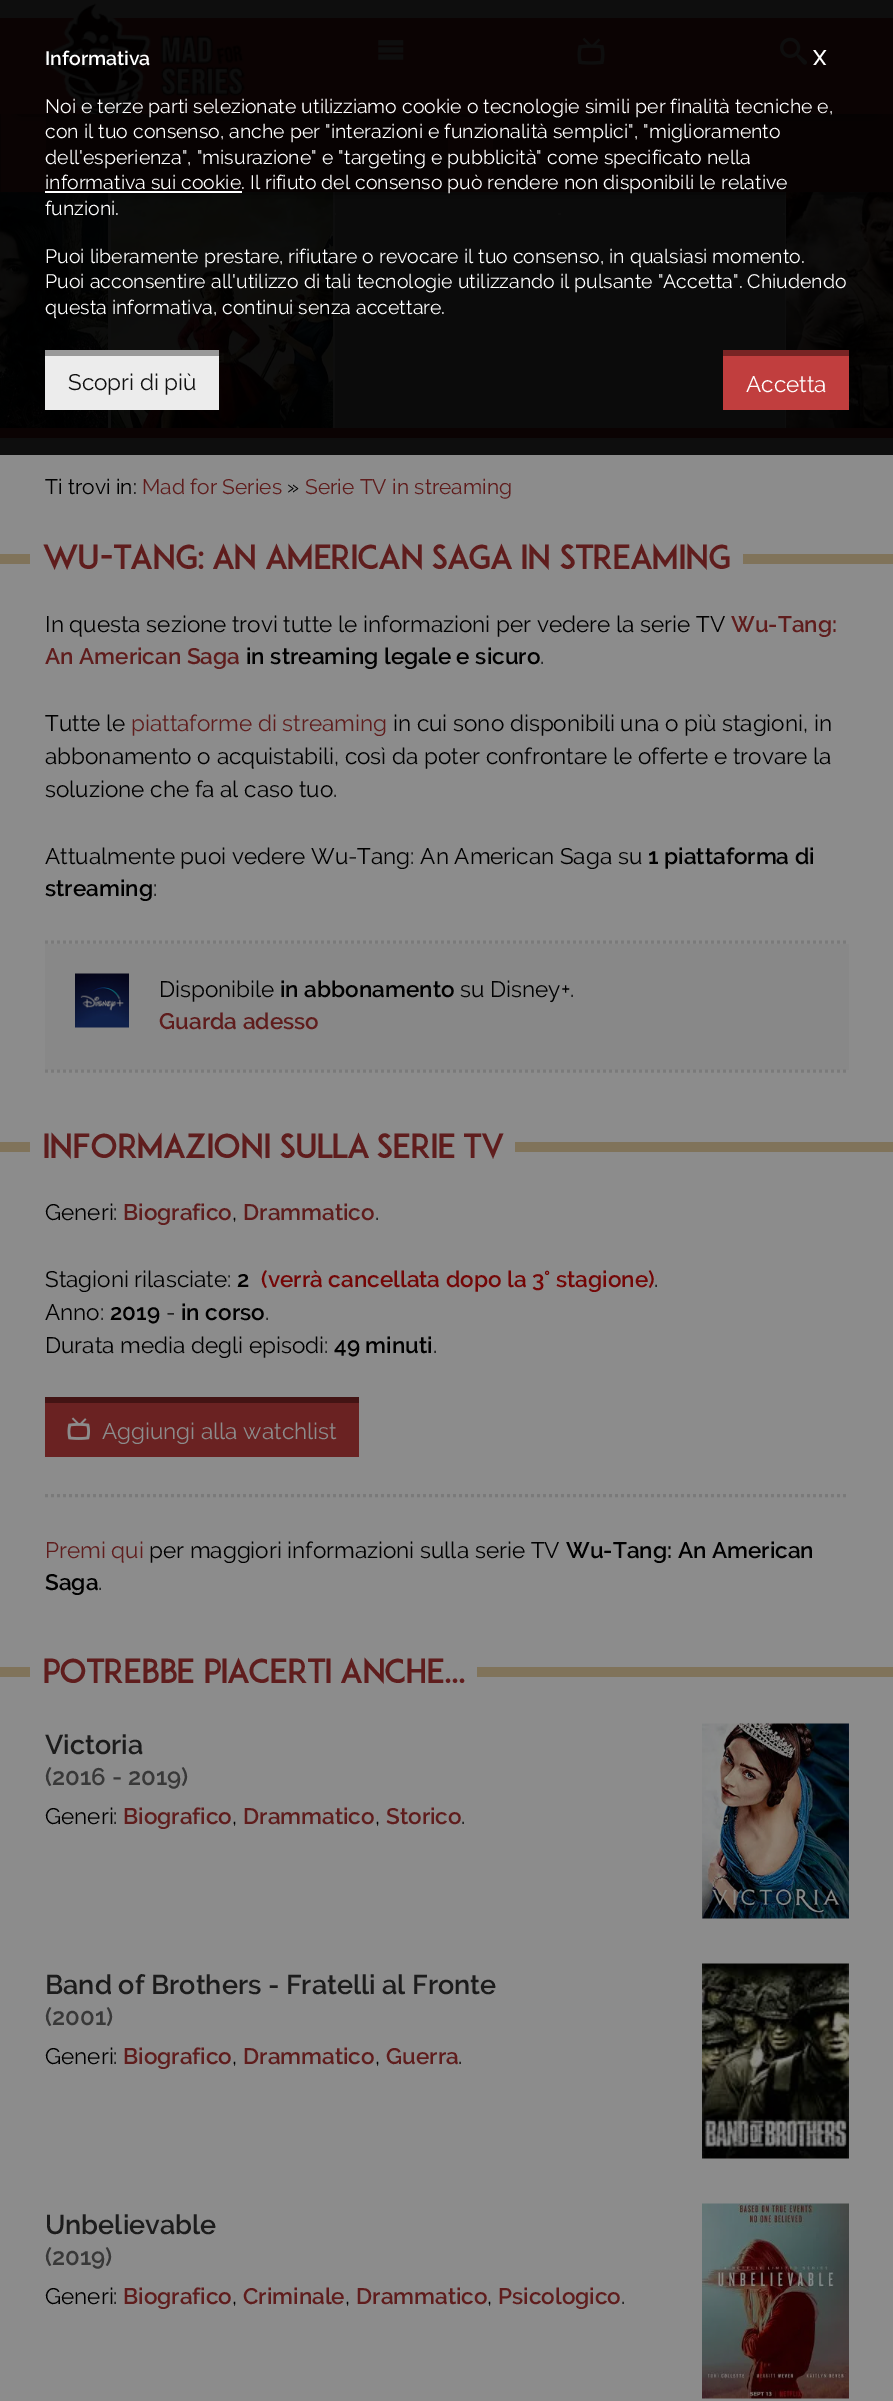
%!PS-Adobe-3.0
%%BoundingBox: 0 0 893 2401
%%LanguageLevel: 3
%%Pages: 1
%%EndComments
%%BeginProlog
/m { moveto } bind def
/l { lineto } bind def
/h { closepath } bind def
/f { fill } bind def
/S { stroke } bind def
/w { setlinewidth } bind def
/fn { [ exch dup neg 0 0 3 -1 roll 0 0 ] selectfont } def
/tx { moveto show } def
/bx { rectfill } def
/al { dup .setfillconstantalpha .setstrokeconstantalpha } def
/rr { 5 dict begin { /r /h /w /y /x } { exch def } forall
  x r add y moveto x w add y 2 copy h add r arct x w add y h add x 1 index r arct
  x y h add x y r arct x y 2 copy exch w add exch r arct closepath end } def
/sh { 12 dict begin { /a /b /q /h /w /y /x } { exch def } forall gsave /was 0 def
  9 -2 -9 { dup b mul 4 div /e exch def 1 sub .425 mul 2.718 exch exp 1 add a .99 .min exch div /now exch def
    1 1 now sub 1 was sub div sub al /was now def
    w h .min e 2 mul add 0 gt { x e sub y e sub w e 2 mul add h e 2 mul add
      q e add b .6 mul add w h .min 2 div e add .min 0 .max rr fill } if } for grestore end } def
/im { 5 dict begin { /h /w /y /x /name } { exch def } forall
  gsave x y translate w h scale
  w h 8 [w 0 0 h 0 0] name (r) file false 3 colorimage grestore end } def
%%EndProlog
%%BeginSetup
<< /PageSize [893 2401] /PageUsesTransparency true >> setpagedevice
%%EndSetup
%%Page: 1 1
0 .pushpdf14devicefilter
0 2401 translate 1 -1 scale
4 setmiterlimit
0.043 setgray
0 0 893 2401 bx
(image4.raw) 0 192 108 236 im
0.055 setgray
108 192 3 236 bx
(image5.raw) 111 192 222 236 im
333 192 2 236 bx
335 213 1 2 bx
558 213 3 2 bx
783 213 2 2 bx
785 192 1 236 bx
(image6.raw) 786 192 107 236 im
0 setgray
18 147 858 42 0 8 1 sh
0.027 0.008 0.008 setrgbcolor
0 114 893 78 bx
0.039 0.012 0.012 setrgbcolor
1 114 45 78 bx
448 114 45 78 bx
0 setgray
18 33 858 78 0 8 1 sh
0.043 0.012 0.012 setrgbcolor
0 18 893 96 bx
0.055 setgray
0 0 893 18 bx
(image0.raw) 45 3 200 111 im
(image1.raw) 378 40 26 20 im
(image2.raw) 577 37 28 28 im
(image3.raw) 780 37 27 28 im
/Raleway-SemiBold 19.5 fn
1 setgray
(Informativa) 45 65 tx
/Raleway-SemiBold 21 fn
(X) 813 65 tx
/Raleway-Regular 19.5 fn
(Noi e terze parti selezionate utilizziamo cookie o tecnologie simili per finalità tecniche e,) 45 113 tx
(con il tuo consenso, anche per "interazioni e funzionalità semplici", "miglioramento) 45 138 tx
(dell'esperienza", "misurazione" e "targeting e pubblicità" come specificato nella) 45 164 tx
45 191 197 2 bx
(informativa sui cookie. Il rifiuto del consenso può rendere non disponibili le relative) 45 189 tx
(funzioni.) 45 215 tx
(Puoi liberamente prestare, rifiutare o revocare il tuo consenso, in qualsiasi momento.) 45 263 tx
(Puoi acconsentire all'utilizzo di tali tecnologie utilizzando il pulsante "Accetta". Chiudendo) 45 288 tx
(questa informativa, continui senza accettare.) 45 314 tx
0.925 setgray
45 356 174 54 bx
0.6 setgray
45 350 174 6 bx
/Raleway-Regular 22.5 fn
0.067 setgray
(Scopri di più) 68 390 tx
0.757 0.243 0.243 setrgbcolor
723 356 126 54 bx
0.475 0.141 0.141 setrgbcolor
723 350 126 6 bx
1 setgray
(Accetta) 746 392 tx
0.549 setgray
0 455 893 1946 bx
0.055 setgray
0 438 893 17 bx
0.043 0.012 0.012 setrgbcolor
0 428 893 10 bx
/Raleway-Regular 21 fn
0 setgray
(Ti trovi in:) 45 494 tx
0.373 0.114 0.114 setrgbcolor
(Mad for Series) 142 494 tx
0 setgray
(») 287 494 tx
0.373 0.114 0.114 setrgbcolor
(Serie TV in streaming) 305 494 tx
0.502 0.451 0.353 setrgbcolor
0 554 893 10 bx
0.549 setgray
42 554 688 10 bx
/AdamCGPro-Regular 33 fn
0.373 0.114 0.114 setrgbcolor
42 569 m -1.5 0 (WU-TANG: AN AMERICAN SAGA IN STREAMING) ashow
0.549 setgray
30 539 m 30 578 l 719 578 l 42 578 l 42 539 l h f
54 578 m 743 578 l 743 539 l 730 539 l 730 578 l h f
/Raleway-Regular 22.5 fn
0 setgray
(In questa sezione trovi tutte le informazioni per vedere la serie TV) 45 632 tx
/Raleway-SemiBold 22.5 fn
0.373 0.114 0.114 setrgbcolor
(Wu-Tang:) 731 632 tx
(An American Saga) 45 664 tx
0 setgray
(in streaming legale e sicuro) 246 664 tx
/Raleway-Regular 22.5 fn
(.) 540 664 tx
(Tutte le) 45 731 tx
0.373 0.114 0.114 setrgbcolor
(piattaforme di streaming) 131 731 tx
0 setgray
(in cui sono disponibili una o più stagioni, in) 393 731 tx
(abbonamento o acquistabili, così da poter confrontare le offerte e trovare la) 45 764 tx
(soluzione che fa al caso tuo.) 45 797 tx
(Attualmente puoi vedere Wu-Tang: An American Saga su) 45 864 tx
/Raleway-SemiBold 22.5 fn
(1 piattaforma di) 648 864 tx
(streaming) 45 896 tx
/Raleway-Regular 22.5 fn
(:) 153 896 tx
0.478 setgray
3 w
[3 3] 0 setdash
45 942 m 849 942 l S
0.533 setgray
45 944 804 126 bx
(image7.raw) 75 973 54 55 im
0 setgray
(Disponibile) 159 997 tx
/Raleway-SemiBold 22.5 fn
(in abbonamento) 280 997 tx
/Raleway-Regular 22.5 fn
(su Disney+.) 460 997 tx
/Raleway-SemiBold 22.5 fn
0.373 0.114 0.114 setrgbcolor
(Guarda adesso) 159 1029 tx
0.478 setgray
45 1071 m 849 1071 l S
0.502 0.451 0.353 setrgbcolor
0 1142 893 10 bx
0.549 setgray
54 1166 m 515 1166 l 515 1127 l 502 1127 l 502 1166 l h f
42 1142 460 10 bx
/AdamCGPro-Regular 33 fn
0.373 0.114 0.114 setrgbcolor
42 1158 m -1.5 0 (INFORMAZIONI SULLA SERIE TV) ashow
0.549 setgray
30 1127 m 30 1166 l 491 1166 l 42 1166 l 42 1127 l h f
/Raleway-Regular 22.5 fn
0 setgray
(Generi:) 45 1220 tx
/Raleway-SemiBold 22.5 fn
0.373 0.114 0.114 setrgbcolor
(Biografico) 123 1220 tx
/Raleway-Regular 22.5 fn
0 setgray
(,) 232 1220 tx
/Raleway-SemiBold 22.5 fn
0.373 0.114 0.114 setrgbcolor
(Drammatico) 243 1220 tx
/Raleway-Regular 22.5 fn
0 setgray
(.) 375 1220 tx
(Stagioni rilasciate:) 45 1287 tx
/Raleway-SemiBold 22.5 fn
(2) 237 1287 tx
0.455 0.024 0.024 setrgbcolor
(\(verrà cancellata dopo la 3° stagione\)) 261 1287 tx
/Raleway-Regular 22.5 fn
0 setgray
(.) 654 1287 tx
(Anno:) 45 1320 tx
/Raleway-SemiBold 22.5 fn
(2019) 110 1320 tx
/Raleway-Regular 22.5 fn
(-) 166 1320 tx
/Raleway-SemiBold 22.5 fn
(in corso) 181 1320 tx
/Raleway-Regular 22.5 fn
(.) 265 1320 tx
(Durata media degli episodi:) 45 1353 tx
/Raleway-SemiBold 22.5 fn
(49 minuti) 334 1353 tx
/Raleway-Regular 22.5 fn
(.) 433 1353 tx
0.416 0.133 0.133 setrgbcolor
45 1403 314 54 bx
0.263 0.078 0.078 setrgbcolor
45 1397 314 6 bx
(image8.raw) 67 1417 23 23 im
0.549 setgray
(Aggiungi alla watchlist) 102 1439 tx
0.478 setgray
45 1495.5 m 849 1495.5 l S
0.373 0.114 0.114 setrgbcolor
(Premi qui) 45 1558 tx
0 setgray
(per maggiori informazioni sulla serie TV) 149 1558 tx
/Raleway-SemiBold 22.5 fn
(Wu-Tang: An American) 566 1558 tx
(Saga) 45 1590 tx
/Raleway-Regular 22.5 fn
(.) 98 1590 tx
0.502 0.451 0.353 setrgbcolor
0 1667 893 10 bx
0.549 setgray
30 1652 m 30 1691 l 453 1691 l 453 1690 l 42 1690 l 42 1652 l h f
54 1690 m 54 1691 l 477 1691 l 477 1652 l 465 1652 l 465 1690 l h f
42 1667 423 10 bx
/AdamCGPro-Regular 33 fn
0.373 0.114 0.114 setrgbcolor
42 1683 m -1.5 0 (POTREBBE PIACERTI ANCHE...) ashow
/Raleway-SemiBold 27 fn
0.11 setgray
(Victoria) 45 1754 tx
/Raleway-SemiBold 24 fn
0.22 setgray
(\(2016 - 2019\)) 45 1785 tx
/Raleway-Regular 22.5 fn
0 setgray
(Generi:) 45 1824 tx
/Raleway-SemiBold 22.5 fn
0.373 0.114 0.114 setrgbcolor
(Biografico) 123 1824 tx
/Raleway-Regular 22.5 fn
0 setgray
(,) 232 1824 tx
/Raleway-SemiBold 22.5 fn
0.373 0.114 0.114 setrgbcolor
(Drammatico) 243 1824 tx
/Raleway-Regular 22.5 fn
0 setgray
(,) 375 1824 tx
/Raleway-SemiBold 22.5 fn
0.373 0.114 0.114 setrgbcolor
(Storico) 386 1824 tx
/Raleway-Regular 22.5 fn
0 setgray
(.) 461 1824 tx
(image9.raw) 702 1723 147 196 im
/Raleway-SemiBold 27 fn
0.11 setgray
(Band of Brothers - Fratelli al Fronte) 45 1994 tx
/Raleway-SemiBold 24 fn
0.22 setgray
(\(2001\)) 45 2025 tx
/Raleway-Regular 22.5 fn
0 setgray
(Generi:) 45 2064 tx
/Raleway-SemiBold 22.5 fn
0.373 0.114 0.114 setrgbcolor
(Biografico) 123 2064 tx
/Raleway-Regular 22.5 fn
0 setgray
(,) 232 2064 tx
/Raleway-SemiBold 22.5 fn
0.373 0.114 0.114 setrgbcolor
(Drammatico) 243 2064 tx
/Raleway-Regular 22.5 fn
0 setgray
(,) 375 2064 tx
/Raleway-SemiBold 22.5 fn
0.373 0.114 0.114 setrgbcolor
(Guerra) 386 2064 tx
/Raleway-Regular 22.5 fn
0 setgray
(.) 458 2064 tx
(image10.raw) 702 1963 147 196 im
/Raleway-SemiBold 27 fn
0.11 setgray
(Unbelievable) 45 2234 tx
/Raleway-SemiBold 24 fn
0.22 setgray
(\(2019\)) 45 2265 tx
/Raleway-Regular 22.5 fn
0 setgray
(Generi:) 45 2304 tx
/Raleway-SemiBold 22.5 fn
0.373 0.114 0.114 setrgbcolor
(Biografico) 123 2304 tx
/Raleway-Regular 22.5 fn
0 setgray
(,) 232 2304 tx
/Raleway-SemiBold 22.5 fn
0.373 0.114 0.114 setrgbcolor
(Criminale) 243 2304 tx
/Raleway-Regular 22.5 fn
0 setgray
(,) 345 2304 tx
/Raleway-SemiBold 22.5 fn
0.373 0.114 0.114 setrgbcolor
(Drammatico) 356 2304 tx
/Raleway-Regular 22.5 fn
0 setgray
(,) 487 2304 tx
/Raleway-SemiBold 22.5 fn
0.373 0.114 0.114 setrgbcolor
(Psicologico) 498 2304 tx
/Raleway-Regular 22.5 fn
0 setgray
(.) 621 2304 tx
(image11.raw) 702 2203 147 196 im
.poppdf14devicefilter showpage
%%EOF
